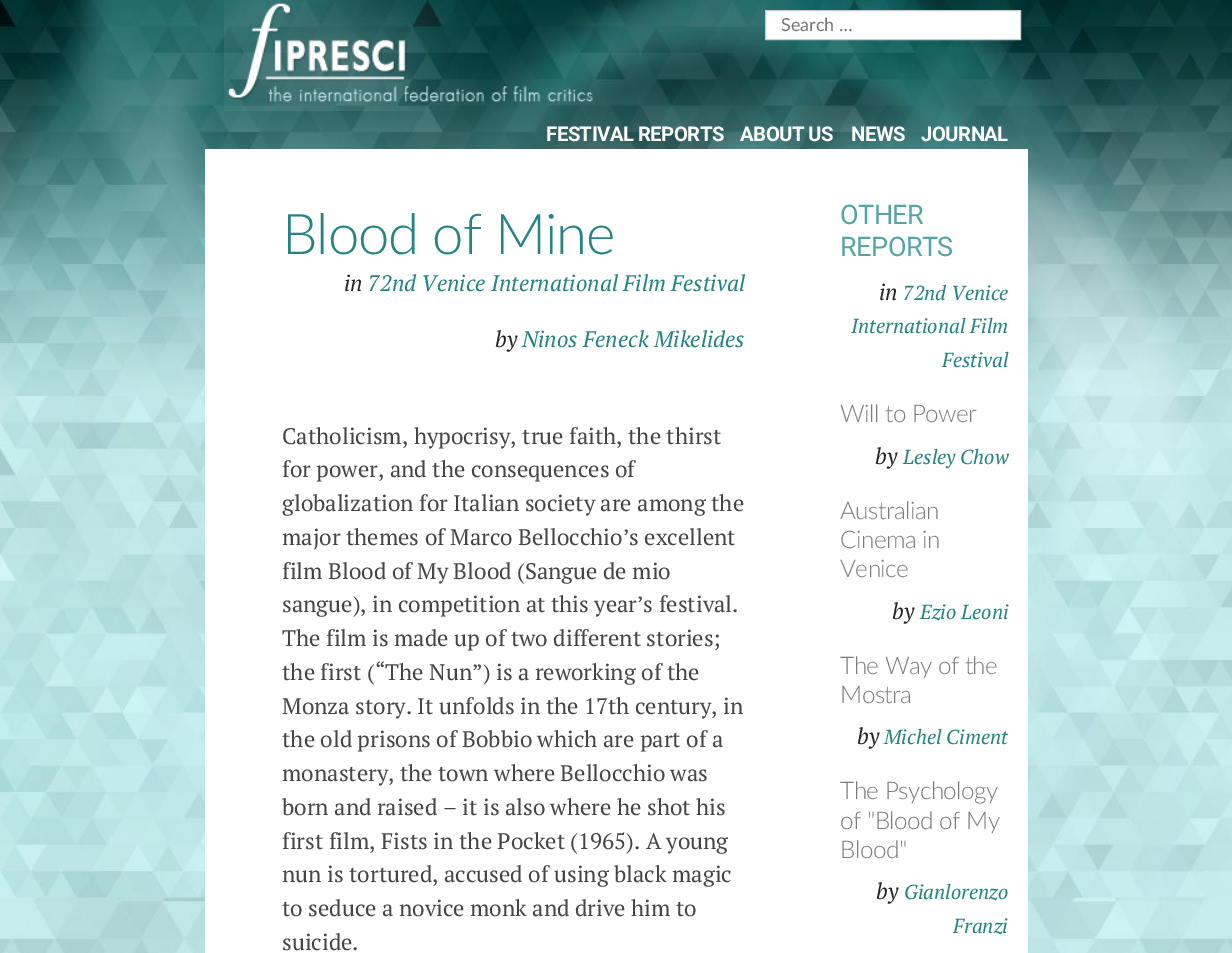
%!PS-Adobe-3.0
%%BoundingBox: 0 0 1232 953
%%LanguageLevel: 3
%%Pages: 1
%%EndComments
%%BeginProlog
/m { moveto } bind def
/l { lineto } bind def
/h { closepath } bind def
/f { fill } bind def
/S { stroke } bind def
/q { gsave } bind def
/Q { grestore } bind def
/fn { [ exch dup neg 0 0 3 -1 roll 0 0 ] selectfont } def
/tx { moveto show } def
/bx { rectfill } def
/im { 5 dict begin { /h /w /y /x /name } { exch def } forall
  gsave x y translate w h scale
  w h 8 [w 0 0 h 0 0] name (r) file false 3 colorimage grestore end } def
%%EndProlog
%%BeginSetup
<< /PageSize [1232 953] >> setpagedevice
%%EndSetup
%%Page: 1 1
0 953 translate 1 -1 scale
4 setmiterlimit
1 setgray
0 0 1232 953 bx
(image0.raw) 0 0 1232 953 im
765.5 10.5 m 1020.5 10.5 l 1020.5 39.5 l 765.5 39.5 l h q f Q
0.8 setgray
S
/Lato-Regular 18 fn
0.459 setgray
(Search …) 781 31 tx
(image1.raw) 224 0 369 111 im
/Roboto-Bold 20.25 fn
1 0.996 0.996 setrgbcolor
546 141 m -0.5 0 (FESTIVAL REPORTS) ashow
740 141 m -0.5 0 (ABOUT US) ashow
851 141 m -0.5 0 (NEWS) ashow
921 141 m -0.5 0 (JOURNAL) ashow
1 setgray
205 149 823 804 bx
/Lato-Light 56.25 fn
0.141 0.518 0.518 setrgbcolor
282 254 m -1.1 0 (Blood of Mine) ashow
/PTSerif-Italic 22.5 fn
0.129 0.145 0.161 setrgbcolor
(in) 344 291 tx
0.141 0.518 0.518 setrgbcolor
(72nd Venice International Film Festival) 368 291 tx
0.129 0.145 0.161 setrgbcolor
(by) 495 347 tx
0.141 0.518 0.518 setrgbcolor
(Ninos Feneck Mikelides) 522 347 tx
/PTSerif-Regular 22.5 fn
0.271 setgray
(Catholicism, hypocrisy, true faith, the thirst) 282 444 tx
(for power, and the consequences of) 282 477 tx
(globalization for Italian society are among the) 282 511 tx
(major themes of Marco Bellocchio’s excellent) 282 545 tx
(film Blood of My Blood \(Sangue de mio) 282 579 tx
(sangue\), in competition at this year’s festival.) 282 612 tx
(The film is made up of two different stories;) 282 646 tx
(the first \(“The Nun”\) is a reworking of the) 282 680 tx
(Monza story. It unfolds in the 17th century, in) 282 714 tx
(the old prisons of Bobbio which are part of a) 282 747 tx
(monastery, the town where Bellocchio was) 282 781 tx
(born and raised – it is also where he shot his) 282 815 tx
(first film, Fists in the Pocket \(1965\). A young) 282 849 tx
(nun is tortured, accused of using black magic) 282 882 tx
(to seduce a novice monk and drive him to) 282 916 tx
(suicide.) 282 950 tx
/Roboto-Regular 27 fn
0.329 0.647 0.647 setrgbcolor
840 224 m -0.5 0 (OTHER) ashow
840 256 m -0.5 0 (REPORTS) ashow
/PTSerif-Italic 22.5 fn
0.129 0.145 0.161 setrgbcolor
(in) 879 300 tx
/PTSerif-Italic 20.25 fn
0.141 0.518 0.518 setrgbcolor
(72nd Venice) 903 300 tx
(International Film) 851 333 tx
(Festival) 942 367 tx
/Lato-Light 24.25 fn
0.482 setgray
840 422 m -0.5 0 (Will to Power) ashow
/PTSerif-Italic 22.5 fn
0.129 0.145 0.161 setrgbcolor
(by) 875 464 tx
/PTSerif-Italic 20.25 fn
0.141 0.518 0.518 setrgbcolor
(Lesley Chow) 903 464 tx
/Lato-Light 24.25 fn
0.482 setgray
840 519 m -0.5 0 (Australian) ashow
840 548 m -0.5 0 (Cinema in) ashow
840 577 m -0.5 0 (Venice) ashow
/PTSerif-Italic 22.5 fn
0.129 0.145 0.161 setrgbcolor
(by) 892 619 tx
/PTSerif-Italic 20.25 fn
0.141 0.518 0.518 setrgbcolor
(Ezio Leoni) 920 619 tx
/Lato-Light 24.25 fn
0.482 setgray
840 674 m -0.5 0 (The Way of the) ashow
840 703 m -0.5 0 (Mostra) ashow
/PTSerif-Italic 22.5 fn
0.129 0.145 0.161 setrgbcolor
(by) 857 744 tx
/PTSerif-Italic 20.25 fn
0.141 0.518 0.518 setrgbcolor
(Michel Ciment) 884 744 tx
/Lato-Light 24.25 fn
0.482 setgray
840 799 m -0.5 0 (The Psychology) ashow
840 829 m -0.5 0 (of "Blood of My) ashow
840 858 m -0.5 0 (Blood") ashow
/PTSerif-Italic 22.5 fn
0.129 0.145 0.161 setrgbcolor
(by) 876 899 tx
/PTSerif-Italic 20.25 fn
0.141 0.518 0.518 setrgbcolor
(Gianlorenzo) 904 899 tx
(Franzi) 953 933 tx
showpage
%%EOF
